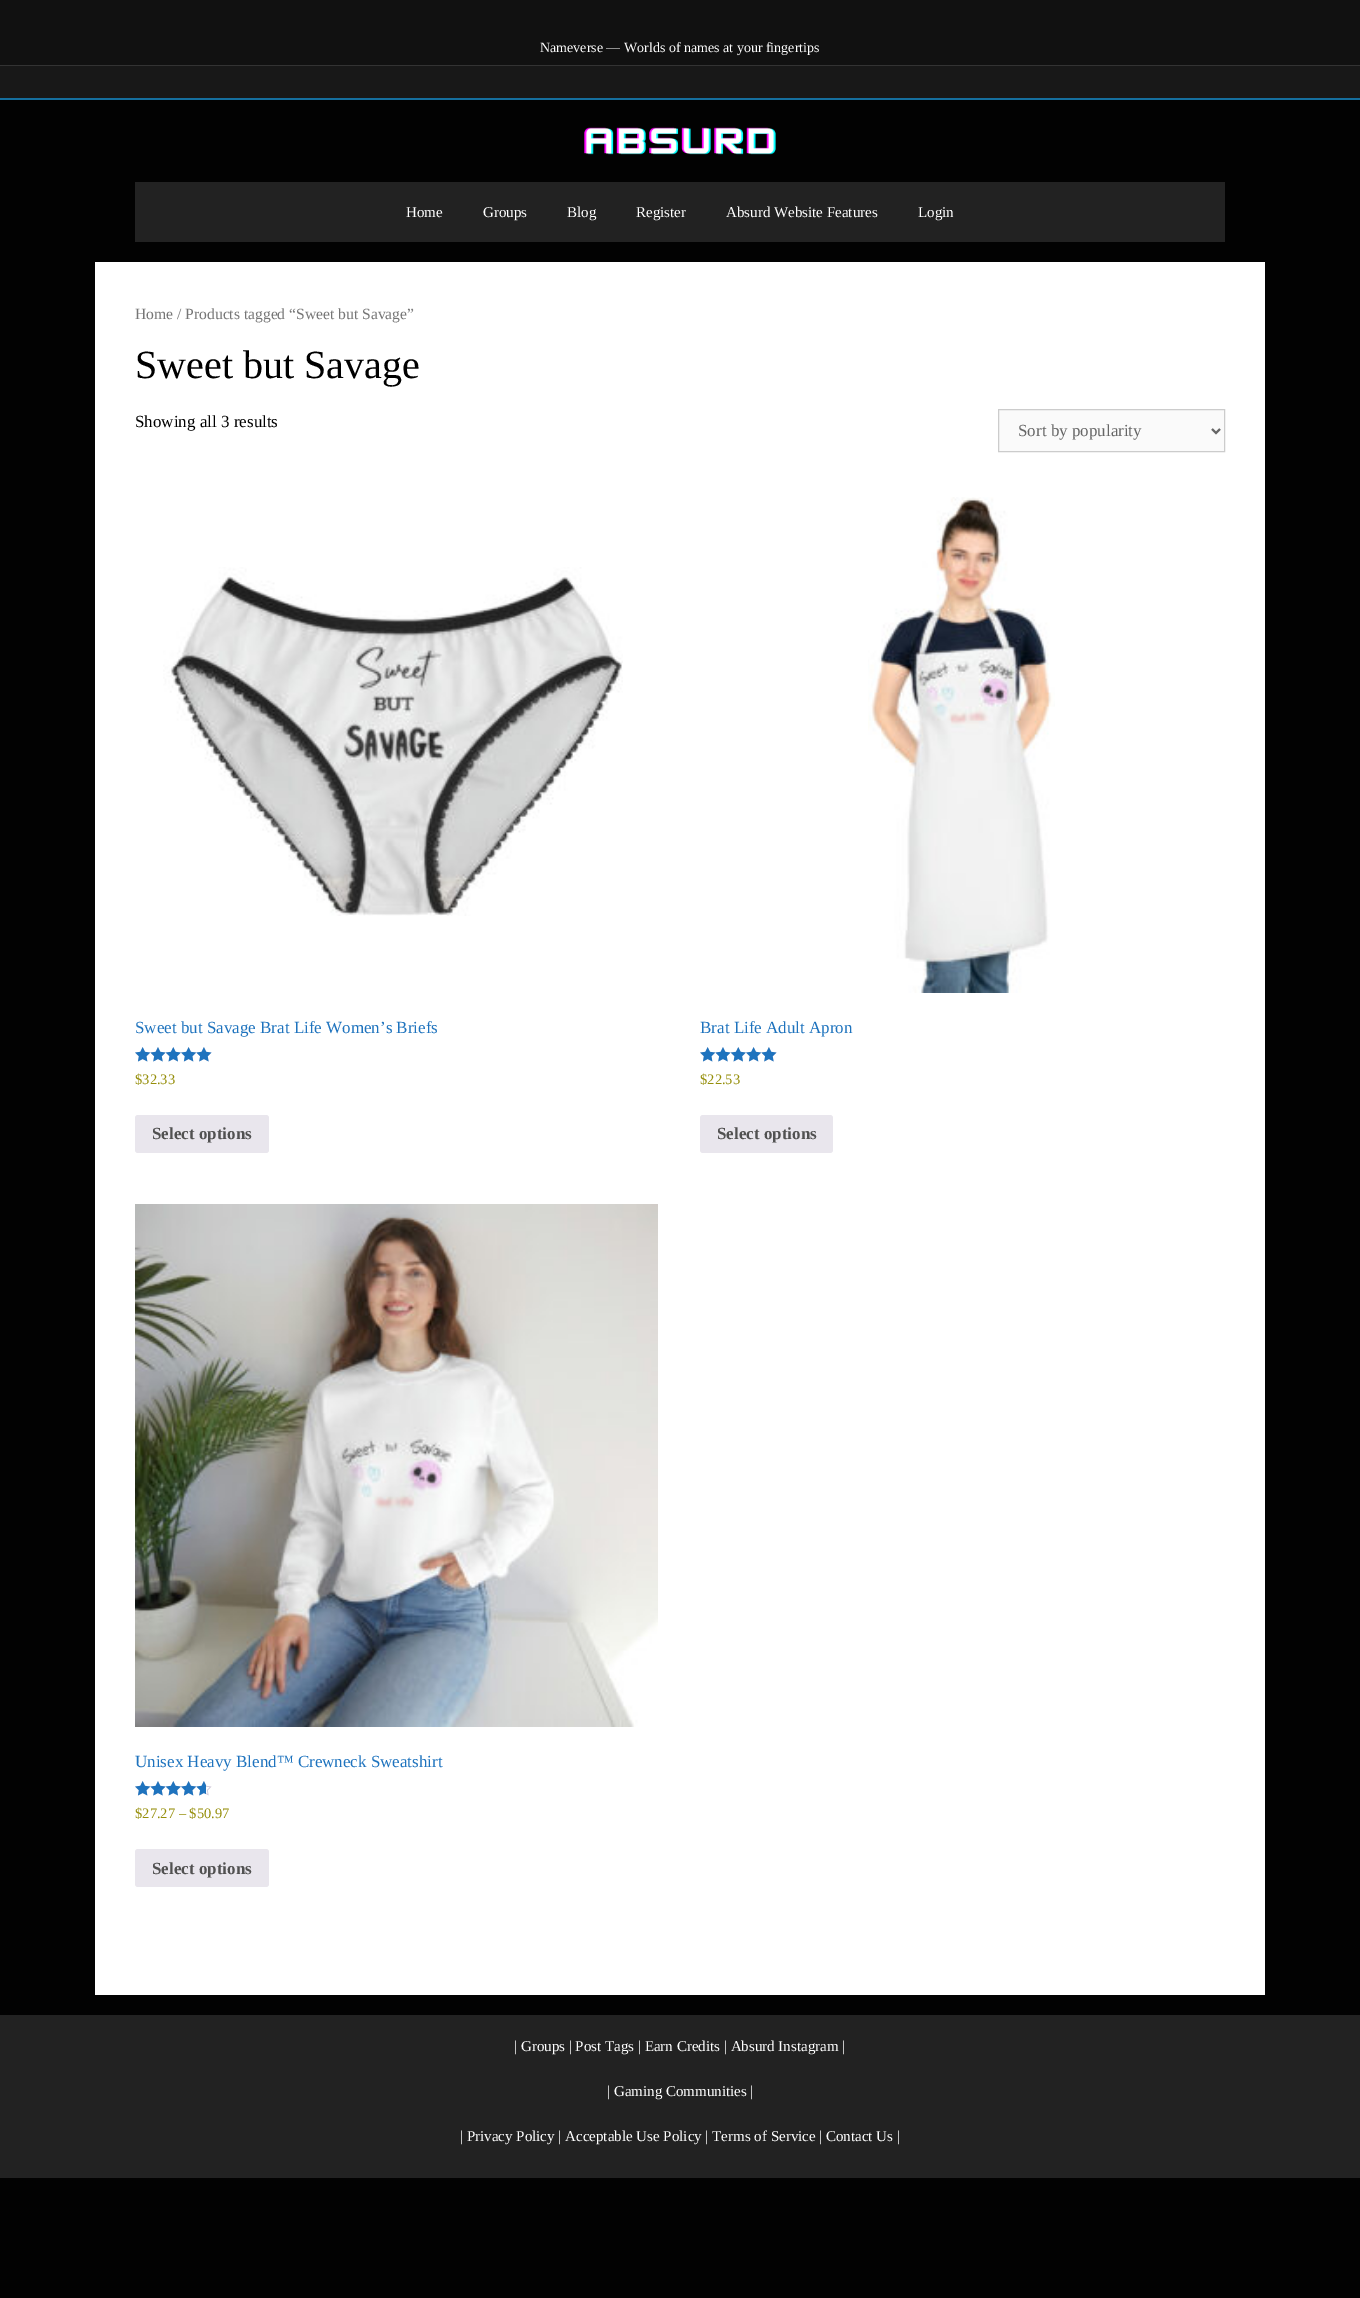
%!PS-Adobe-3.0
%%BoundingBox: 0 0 1360 2298
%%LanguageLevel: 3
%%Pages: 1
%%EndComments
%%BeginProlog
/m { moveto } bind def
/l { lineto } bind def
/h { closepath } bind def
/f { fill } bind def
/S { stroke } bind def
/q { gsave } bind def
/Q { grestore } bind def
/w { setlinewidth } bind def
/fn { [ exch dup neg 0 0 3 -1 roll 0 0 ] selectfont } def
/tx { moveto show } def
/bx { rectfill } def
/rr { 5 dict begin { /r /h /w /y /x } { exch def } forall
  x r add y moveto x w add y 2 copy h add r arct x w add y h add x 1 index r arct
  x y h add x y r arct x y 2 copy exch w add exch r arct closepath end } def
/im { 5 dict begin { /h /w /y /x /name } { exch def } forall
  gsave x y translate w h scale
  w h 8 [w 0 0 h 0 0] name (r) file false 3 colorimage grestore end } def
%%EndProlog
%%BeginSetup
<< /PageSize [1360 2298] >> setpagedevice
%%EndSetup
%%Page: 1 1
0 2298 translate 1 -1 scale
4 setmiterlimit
0.008 setgray
0 0 1360 2298 bx
0.067 setgray
0 0 1360 65 bx
0.2 setgray
0 65 1360 1 bx
/LiberationSerif-Regular 14 fn
1 setgray
(Nameverse — Worlds of names at your fingertips) 540 52 tx
0.094 setgray
0 66 1360 32 bx
0.082 0.431 0.616 setrgbcolor
0 98 1360 2 bx
(image0.raw) 584 127 192 28 im
0.133 setgray
135 182 1090 60 bx
/LiberationSerif-Regular 15 fn
1 setgray
(Home) 406 217 tx
(Groups) 483 217 tx
(Blog) 567 217 tx
(Register) 636 217 tx
(Absurd Website Features) 726 217 tx
(Login) 918 217 tx
95 262 1170 1733 bx
/LiberationSerif-Regular 15.6 fn
0.463 setgray
(Home / Products tagged “Sweet but Savage”) 135 319 tx
/LiberationSerif-Regular 40 fn
0 setgray
(Sweet but Savage) 135 378 tx
/LiberationSerif-Regular 17 fn
(Showing all 3 results) 135 427 tx
0.98 setgray
998.5 409.5 m 1224.5 409.5 l 1224.5 451.5 l 998.5 451.5 l h q f Q
0.8 setgray
S
0.4 setgray
2 w
1212 429 m 1216 433 l 1220 429 l S
(Sort by popularity) 1018 436 tx
(image1.raw) 163 567 460 349 im
0.118 0.451 0.745 setrgbcolor
(Sweet but Savage Brat Life Women’s Briefs) 135 1033 tx
(image2.raw) 135 1047 77 15 im
(image3.raw) 135 1047 77 15 im
/LiberationSerif-Regular 14.5 fn
0.584 0.557 0.035 setrgbcolor
($32.33) 135 1084 tx
0.914 0.902 0.929 setrgbcolor
135 1115 134 38 3 rr f
/LiberationSerif-Bold 17 fn
0.318 setgray
(Select options) 152 1139 tx
(image4.raw) 868 497 187 496 im
/LiberationSerif-Regular 17 fn
0.118 0.451 0.745 setrgbcolor
(Brat Life Adult Apron) 700 1033 tx
(image2.raw) 700 1047 77 15 im
(image3.raw) 700 1047 77 15 im
/LiberationSerif-Regular 14.5 fn
0.584 0.557 0.035 setrgbcolor
($22.53) 700 1084 tx
0.914 0.902 0.929 setrgbcolor
700 1115 133 38 3 rr f
/LiberationSerif-Bold 17 fn
0.318 setgray
(Select options) 717 1139 tx
(image5.raw) 135 1204 523 523 im
/LiberationSerif-Regular 17 fn
0.118 0.451 0.745 setrgbcolor
(Unisex Heavy Blend™ Crewneck Sweatshirt) 135 1767 tx
(image2.raw) 135 1781 77 15 im
(image6.raw) 135 1781 71 15 im
/LiberationSerif-Regular 14.5 fn
0.584 0.557 0.035 setrgbcolor
($27.27 – $50.97) 135 1818 tx
0.914 0.902 0.929 setrgbcolor
135 1849 134 38 3 rr f
/LiberationSerif-Bold 17 fn
0.318 setgray
(Select options) 152 1874 tx
0.133 setgray
0 2015 1360 163 bx
/LiberationSerif-Regular 15 fn
1 setgray
(| Groups | Post Tags | Earn Credits | Absurd Instagram |) 514 2051 tx
(| Gaming Communities |) 607 2096 tx
(| Privacy Policy | Acceptable Use Policy | Terms of Service | Contact Us |) 460 2141 tx
showpage
%%EOF
